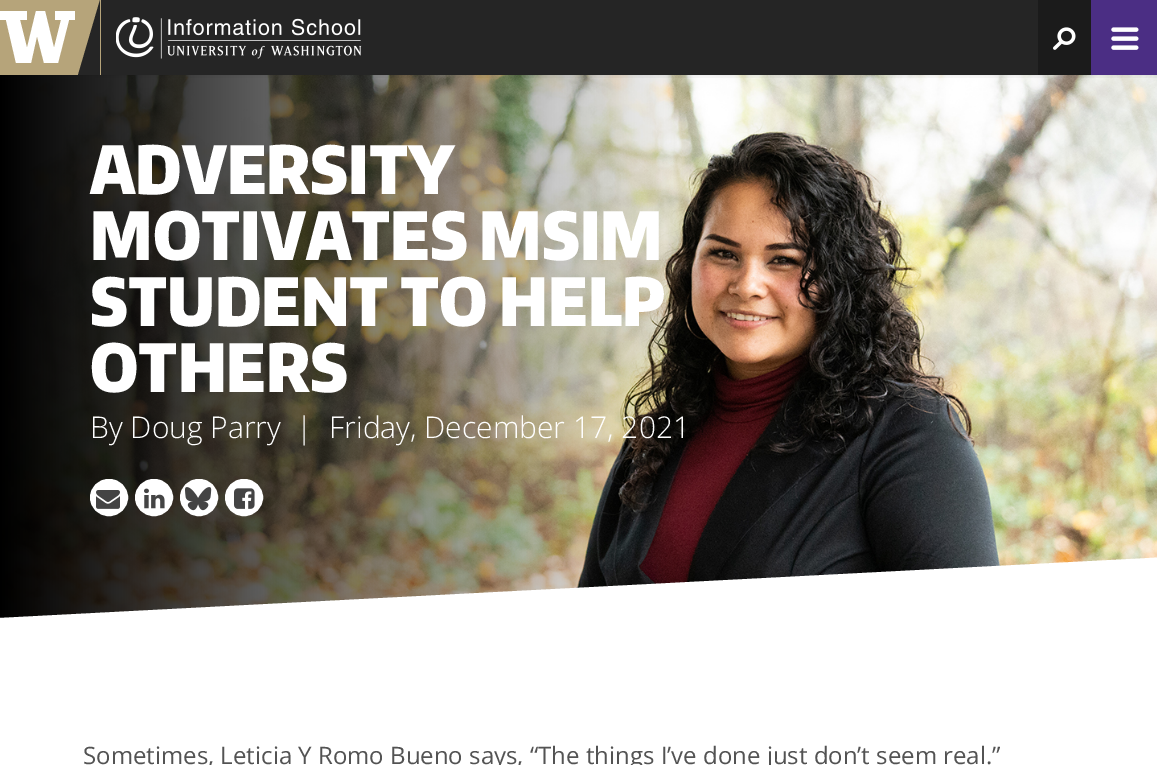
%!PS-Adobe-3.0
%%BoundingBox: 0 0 1157 765
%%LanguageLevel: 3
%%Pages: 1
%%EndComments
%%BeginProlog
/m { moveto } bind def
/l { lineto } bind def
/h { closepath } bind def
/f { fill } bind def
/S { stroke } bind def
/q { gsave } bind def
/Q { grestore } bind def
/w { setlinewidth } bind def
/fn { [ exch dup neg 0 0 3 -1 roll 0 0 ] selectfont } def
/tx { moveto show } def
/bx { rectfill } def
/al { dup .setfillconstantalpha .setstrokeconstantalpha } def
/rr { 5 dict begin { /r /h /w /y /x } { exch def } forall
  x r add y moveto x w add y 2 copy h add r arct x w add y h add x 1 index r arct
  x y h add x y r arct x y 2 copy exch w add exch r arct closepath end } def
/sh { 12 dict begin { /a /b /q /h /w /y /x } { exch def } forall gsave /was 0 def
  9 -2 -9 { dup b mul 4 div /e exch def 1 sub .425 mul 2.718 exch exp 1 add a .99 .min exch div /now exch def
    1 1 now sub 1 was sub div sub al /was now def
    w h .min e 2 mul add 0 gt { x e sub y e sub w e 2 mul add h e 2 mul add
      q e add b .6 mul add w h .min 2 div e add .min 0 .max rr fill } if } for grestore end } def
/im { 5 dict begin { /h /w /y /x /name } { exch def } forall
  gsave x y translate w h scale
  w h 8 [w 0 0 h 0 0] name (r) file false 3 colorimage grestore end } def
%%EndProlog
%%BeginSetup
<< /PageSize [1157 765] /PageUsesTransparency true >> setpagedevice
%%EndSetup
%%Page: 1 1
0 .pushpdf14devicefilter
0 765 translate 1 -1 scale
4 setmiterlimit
0.145 setgray
0 0 1157 765 bx
(image3.raw) 0 75 1157 543 im
q
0 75 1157 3 rectclip
0 setgray
0 0 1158 75 0 4 0.1 sh
Q
0.714 0.643 0.478 setrgbcolor
0 0 101 75 bx
1 setgray
55 11 m 55 20 l 61 20 l 54 48 l 45 11 l 36 11 l 27 48 l 20 20 l 27 20 l 27 11 l 0 11 l 0 20 l 6 20 l 16 63 l 31 63 l 37 36 l 44 63 l 58 63 l 69 20 l 75 20 l 75 11 l h f
0.145 setgray
100 75 m 78 75 l 100 0 l h f
(image0.raw) 116 17 246 42 im
0.106 setgray
1038 0 53 75 bx
(image1.raw) 1053 27 23 23 im
0.294 0.18 0.518 setrgbcolor
1091 0 66 75 bx
(image2.raw) 1111 27 28 23 im
/EncodeSansCondensed-Black 66 fn
1 setgray
(ADVERSITY) 90 194 tx
(MOTIVATES MSIM) 90 260 tx
(STUDENT TO HELP) 90 326 tx
(OTHERS) 90 392 tx
/OpenSans-Light 30 fn
(By Doug Parry) 90 438 tx
(|) 296 438 tx
(Friday, December 17, 2021) 329 438 tx
91 480 36 35 17.5 rr q f Q
2 w
S
(image4.raw) 96 490 24 19 im
136 480 36 35 17.5 rr q f Q
S
(image5.raw) 144 488 21 21 im
181 480 36 35 17.5 rr q f Q
S
(image6.raw) 185 487 27 24 im
226 480 36 35 17.5 rr q f Q
S
(image7.raw) 234 488 21 21 im
-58 621 m 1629 533 l 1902 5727 l 214 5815 l h f
/OpenSans-Regular 24 fn
0.325 setgray
(Sometimes, Leticia Y Romo Bueno says, “The things I’ve done just don’t seem real.”) 83 764 tx
.poppdf14devicefilter showpage
%%EOF
